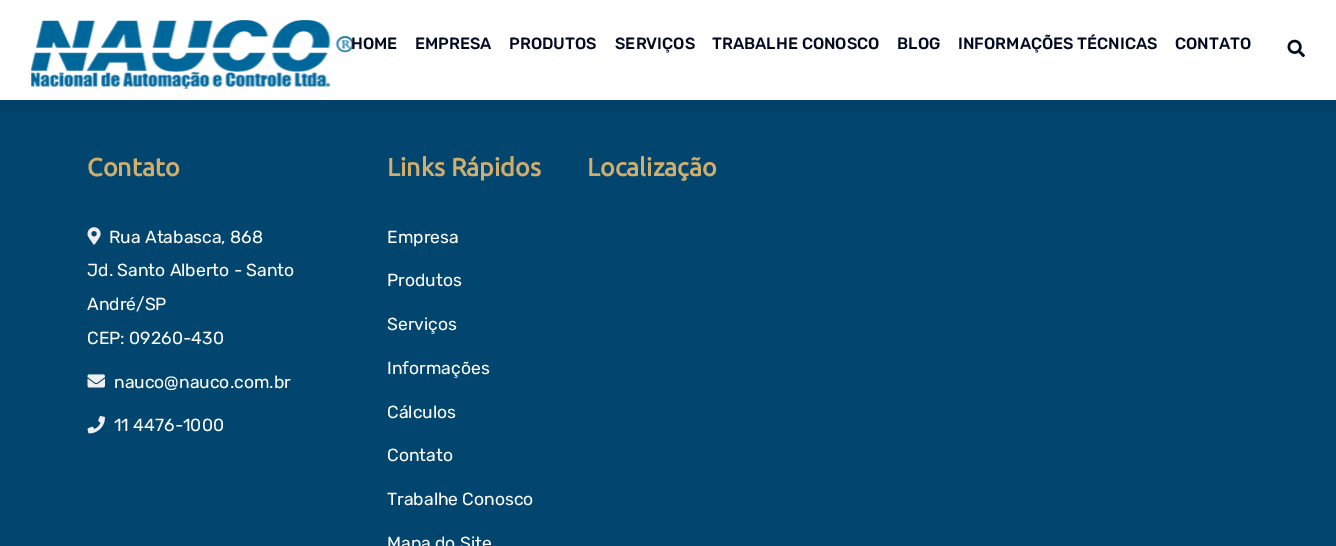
%!PS-Adobe-3.0
%%BoundingBox: 0 0 1336 546
%%LanguageLevel: 3
%%Pages: 1
%%EndComments
%%BeginProlog
/fn { [ exch dup neg 0 0 3 -1 roll 0 0 ] selectfont } def
/tx { moveto show } def
/bx { rectfill } def
/al { dup .setfillconstantalpha .setstrokeconstantalpha } def
/rr { 5 dict begin { /r /h /w /y /x } { exch def } forall
  x r add y moveto x w add y 2 copy h add r arct x w add y h add x 1 index r arct
  x y h add x y r arct x y 2 copy exch w add exch r arct closepath end } def
/sh { 12 dict begin { /a /b /q /h /w /y /x } { exch def } forall gsave /was 0 def
  9 -2 -9 { dup b mul 4 div /e exch def 1 sub .425 mul 2.718 exch exp 1 add a .99 .min exch div /now exch def
    1 1 now sub 1 was sub div sub al /was now def
    w h .min e 2 mul add 0 gt { x e sub y e sub w e 2 mul add h e 2 mul add
      q e add b .6 mul add w h .min 2 div e add .min 0 .max rr fill } if } for grestore end } def
/im { 5 dict begin { /h /w /y /x /name } { exch def } forall
  gsave x y translate w h scale
  w h 8 [w 0 0 h 0 0] name (r) file false 3 colorimage grestore end } def
%%EndProlog
%%BeginSetup
<< /PageSize [1336 546] /PageUsesTransparency true >> setpagedevice
%%EndSetup
%%Page: 1 1
0 .pushpdf14devicefilter
0 546 translate 1 -1 scale
4 setmiterlimit
0.008 0.271 0.435 setrgbcolor
0 0 1336 546 bx
0 setgray
0 4 1336 100 0 10 0.1 sh
1 setgray
0 0 1336 100 bx
(image0.raw) 31 20 324 69 im
/Rubik-Medium 16.25 fn
0.008 0.039 0.129 setrgbcolor
(HOME) 351 49 tx
(EMPRESA) 415 49 tx
(PRODUTOS) 509 49 tx
(SERVIÇOS) 615 49 tx
(TRABALHE CONOSCO) 712 49 tx
(BLOG) 897 49 tx
(INFORMAÇÕES TÉCNICAS) 958 49 tx
(CONTATO) 1175 49 tx
(image1.raw) 1287 39 18 19 im
/Ubuntu-Bold 25 fn
0.824 0.682 0.427 setrgbcolor
(Contato) 87 176 tx
(image2.raw) 87 227 14 18 im
/Rubik-Regular 17.5 fn
1 setgray
(Rua Atabasca, 868) 109 243 tx
(Jd. Santo Alberto - Santo) 87 276 tx
(André/SP) 87 310 tx
(CEP: 09260-430) 87 344 tx
(image3.raw) 87 374 18 14 im
(nauco@nauco.com.br) 114 388 tx
(image4.raw) 87 416 18 18 im
(11 4476-1000) 114 431 tx
/Ubuntu-Bold 25 fn
0.824 0.682 0.427 setrgbcolor
(Links Rápidos) 387 176 tx
/Rubik-Regular 17.5 fn
1 setgray
(Empresa) 387 243 tx
(Produtos) 387 286 tx
(Serviços) 387 330 tx
(Informações) 387 374 tx
(Cálculos) 387 418 tx
(Contato) 387 461 tx
(Trabalhe Conosco) 387 505 tx
(Mapa do Site) 387 549 tx
/Ubuntu-Bold 25 fn
0.824 0.682 0.427 setrgbcolor
(Localização) 587 176 tx
.poppdf14devicefilter showpage
%%EOF
